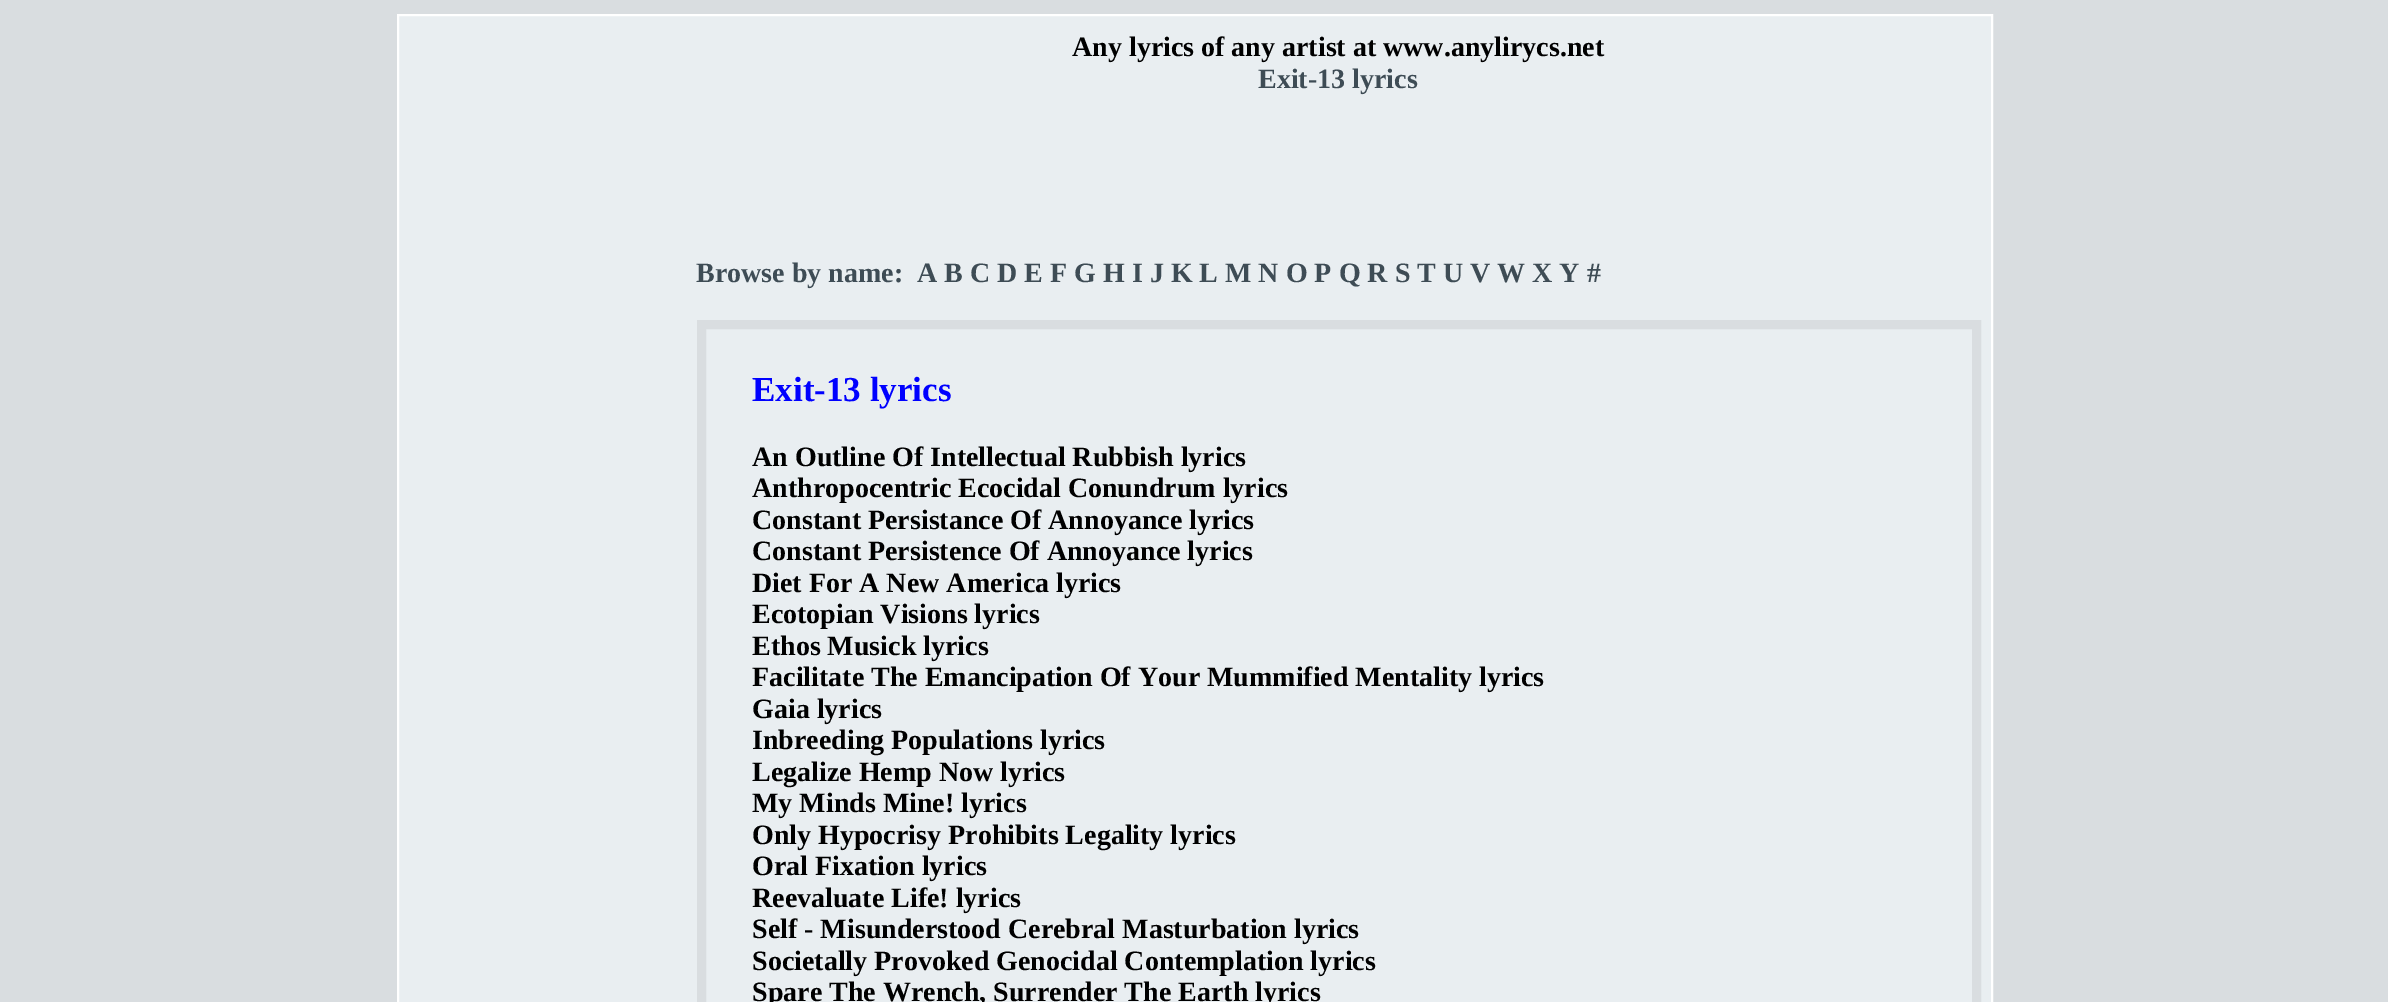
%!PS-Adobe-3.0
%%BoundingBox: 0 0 2388 1002
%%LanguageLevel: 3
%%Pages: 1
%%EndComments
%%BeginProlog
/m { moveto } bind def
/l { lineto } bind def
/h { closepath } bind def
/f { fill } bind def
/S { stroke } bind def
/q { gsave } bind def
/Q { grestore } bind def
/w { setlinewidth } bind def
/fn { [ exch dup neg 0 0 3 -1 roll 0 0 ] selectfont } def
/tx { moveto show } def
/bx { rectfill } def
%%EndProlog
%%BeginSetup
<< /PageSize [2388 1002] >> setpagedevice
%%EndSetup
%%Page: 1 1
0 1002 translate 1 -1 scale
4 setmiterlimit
0.851 0.867 0.878 setrgbcolor
0 0 2388 1002 bx
0.914 0.933 0.945 setrgbcolor
398 15 m 1992 15 l 1992 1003 l 398 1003 l h q f Q
1 setgray
2 w
S
/LiberationSerif-Bold 28 fn
0 setgray
(Any lyrics of any artist at www.anylirycs.net) 1072 56 tx
0.243 0.298 0.333 setrgbcolor
(Exit-13 lyrics) 1258 88 tx
(Browse by name:) 696 282 tx
(A B C D E F G H I J K L M N O P Q R S T U V W X Y #) 917 282 tx
0.851 0.867 0.878 setrgbcolor
9 w
701.5 324.5 1275 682 rectstroke
/LiberationSerif-Bold 35 fn
0 0 1 setrgbcolor
(Exit-13 lyrics) 752 401 tx
/LiberationSerif-Bold 28 fn
0 setgray
(An Outline Of Intellectual Rubbish lyrics) 752 466 tx
(Anthropocentric Ecocidal Conundrum lyrics) 752 497 tx
(Constant Persistance Of Annoyance lyrics) 752 529 tx
(Constant Persistence Of Annoyance lyrics) 752 560 tx
(Diet For A New America lyrics) 752 592 tx
(Ecotopian Visions lyrics) 752 623 tx
(Ethos Musick lyrics) 752 655 tx
(Facilitate The Emancipation Of Your Mummified Mentality lyrics) 752 686 tx
(Gaia lyrics) 752 718 tx
(Inbreeding Populations lyrics) 752 749 tx
(Legalize Hemp Now lyrics) 752 781 tx
(My Minds Mine! lyrics) 752 812 tx
(Only Hypocrisy Prohibits Legality lyrics) 752 844 tx
(Oral Fixation lyrics) 752 875 tx
(Reevaluate Life! lyrics) 752 907 tx
(Self - Misunderstood Cerebral Masturbation lyrics) 752 938 tx
(Societally Provoked Genocidal Contemplation lyrics) 752 970 tx
(Spare The Wrench, Surrender The Earth lyrics) 752 1001 tx
showpage
%%EOF
